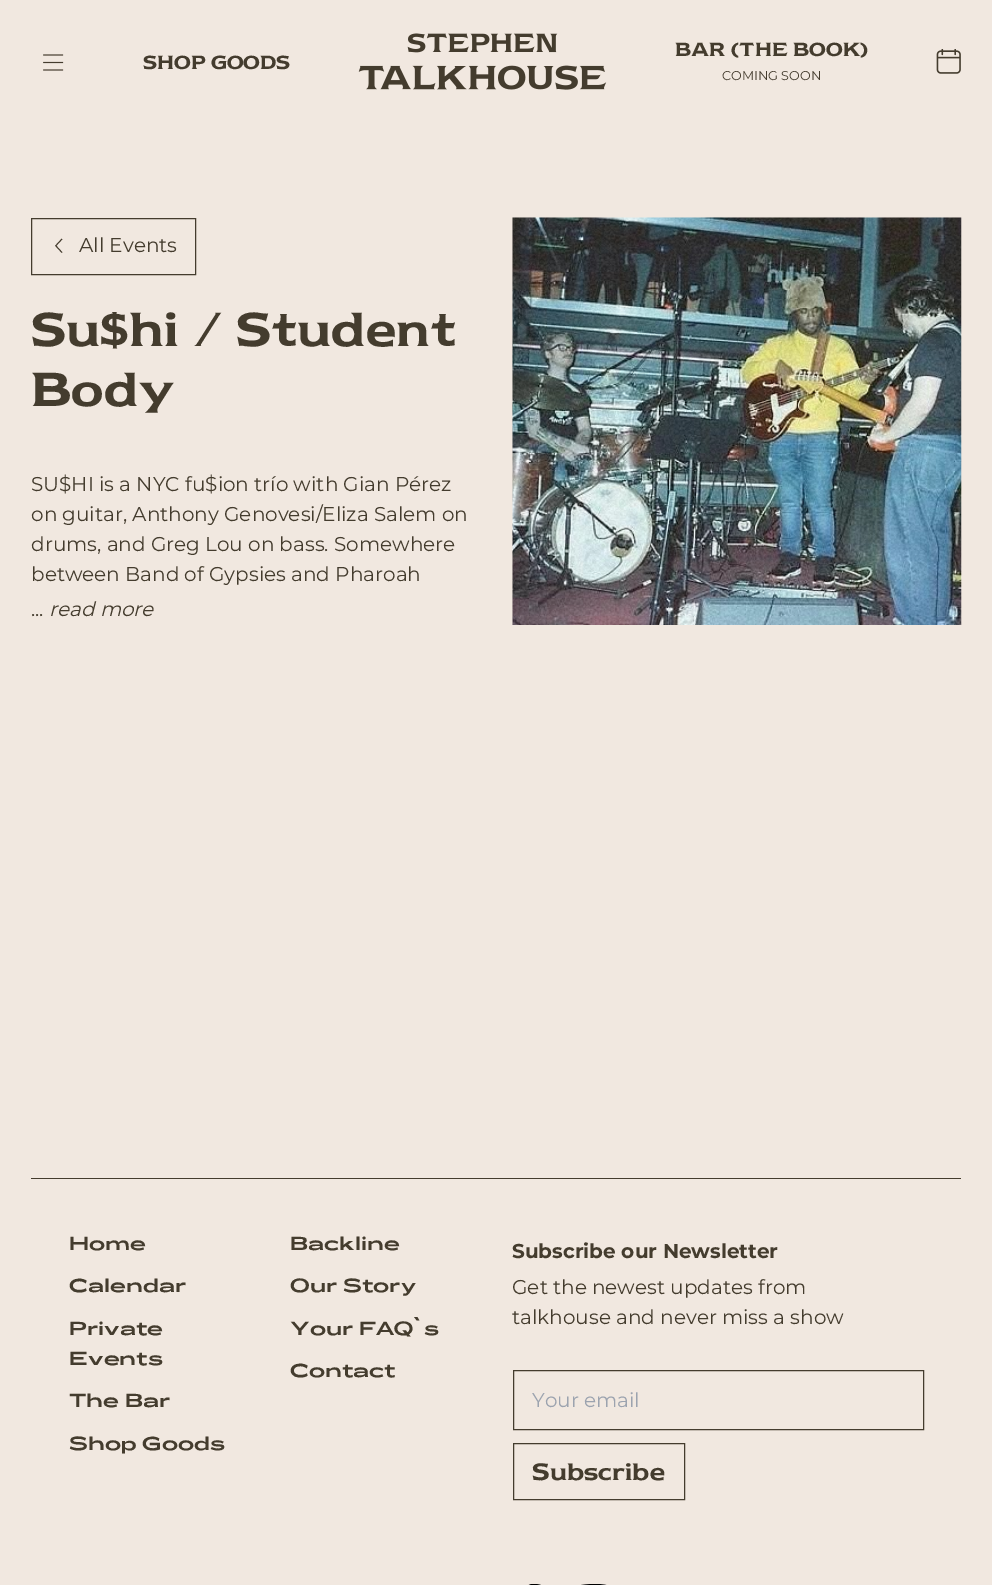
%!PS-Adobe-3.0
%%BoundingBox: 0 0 992 1585
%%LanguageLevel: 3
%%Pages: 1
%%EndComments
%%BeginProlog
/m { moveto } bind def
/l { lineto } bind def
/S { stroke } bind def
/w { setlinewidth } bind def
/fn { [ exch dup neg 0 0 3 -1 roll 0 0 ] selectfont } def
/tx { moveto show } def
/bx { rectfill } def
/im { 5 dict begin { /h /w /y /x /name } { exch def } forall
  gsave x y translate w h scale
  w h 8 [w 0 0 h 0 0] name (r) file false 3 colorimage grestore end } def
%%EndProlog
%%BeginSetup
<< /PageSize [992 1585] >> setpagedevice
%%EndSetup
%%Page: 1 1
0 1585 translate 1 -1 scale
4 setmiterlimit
0.945 0.91 0.878 setrgbcolor
0 0 992 1585 bx
(image0.raw) 43 54 21 17 im
/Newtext-Medium 16 fn
0.267 0.235 0.18 setrgbcolor
(SHOP GOODS) 143 69 tx
(image1.raw) 358 33 249 57 im
(BAR \(THE BOOK\)) 675 56 tx
/Montserrat-Regular 12.75 fn
(COMING SOON) 722 80 tx
(image2.raw) 936 49 25 25 im
31.5 218.5 164 56 rectstroke
0.9 w
62 252.5 m 55.5 245.5 l 55.5 246 m 62 239 l S
/Montserrat-Regular 20 fn
(All Events) 79 252 tx
/Newtext-Medium 40 fn
(Su$hi / Student) 31 346 tx
(Body) 31 406 tx
/Montserrat-Regular 20 fn
(SU$HI is a NYC fu$ion trío with Gian Pérez) 31 491 tx
(on guitar, Anthony Genovesi/Eliza Salem on) 31 521 tx
(drums, and Greg Lou on bass. Somewhere) 31 551 tx
(between Band of Gypsies and Pharoah) 31 581 tx
(...) 31 616 tx
/Montserrat-Italic 20 fn
(read more) 49 616 tx
(image3.raw) 512 217 450 408 im
(image4.raw) 512 217 449 408 im
31 1178 930 1 bx
/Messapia-Bold 18 fn
(Home) 69 1250 tx
(Calendar) 69 1292 tx
(Private) 69 1335 tx
(Events) 69 1365 tx
(The Bar) 69 1407 tx
(Shop Goods) 69 1450 tx
(Backline) 290 1250 tx
(Our Story) 290 1292 tx
(Your FAQ`s) 290 1335 tx
(Contact) 290 1377 tx
/Montserrat-Bold 20 fn
(Subscribe our Newsletter) 512 1258 tx
/Montserrat-Regular 20 fn
(Get the newest updates from) 512 1294 tx
(talkhouse and never miss a show) 512 1324 tx
1 w
513.5 1370.5 410 59 rectstroke
0.612 0.639 0.686 setrgbcolor
(Your email) 532 1407 tx
0.267 0.235 0.18 setrgbcolor
513.5 1443.5 171 56 rectstroke
/Newtext-Medium 20 fn
(Subscribe) 532 1480 tx
(image5.raw) 528 1584 13 1 im
(image6.raw) 581 1584 26 1 im
showpage
%%EOF
